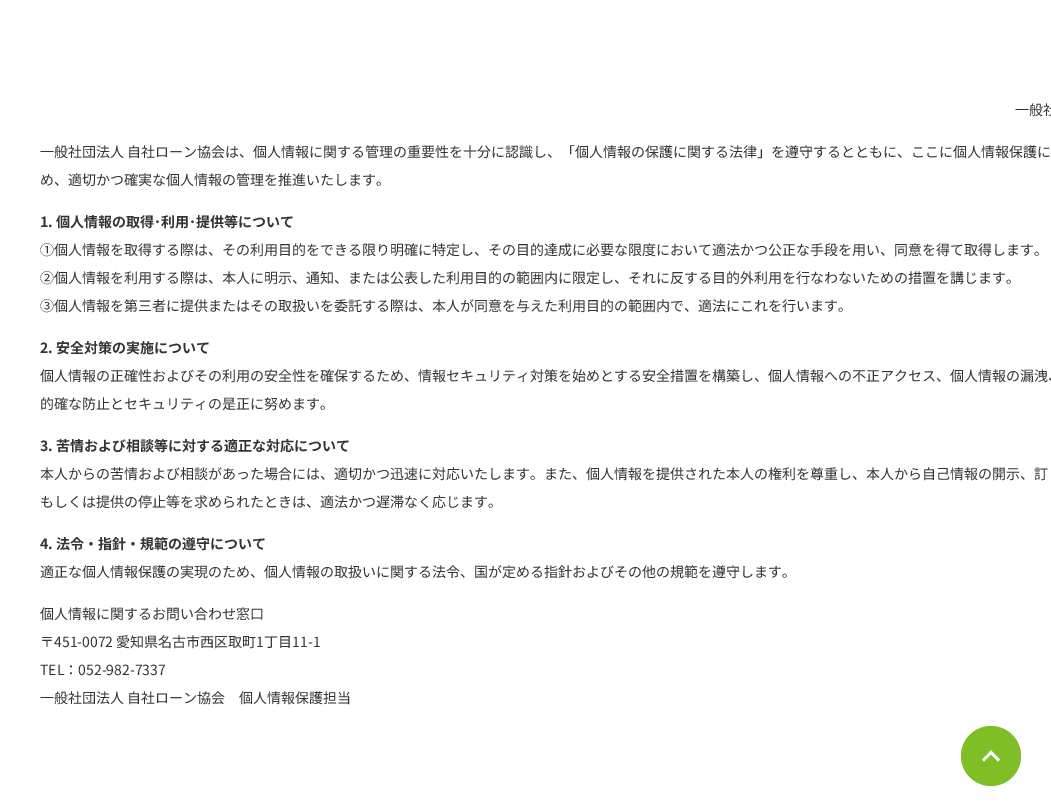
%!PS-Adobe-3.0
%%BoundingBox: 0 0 1051 806
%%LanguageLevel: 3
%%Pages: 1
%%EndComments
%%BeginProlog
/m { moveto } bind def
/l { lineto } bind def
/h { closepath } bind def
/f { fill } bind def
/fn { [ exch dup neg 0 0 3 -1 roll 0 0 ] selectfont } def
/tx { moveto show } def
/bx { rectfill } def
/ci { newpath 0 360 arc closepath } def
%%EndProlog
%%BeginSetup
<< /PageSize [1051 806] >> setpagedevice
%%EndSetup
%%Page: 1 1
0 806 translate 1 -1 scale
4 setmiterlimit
1 setgray
0 0 1051 806 bx
/NotoSansJP-Regular 14 fn
0.2 setgray
(一般社) 1015 115 tx
(一般社団法人 自社ローン協会は、個人情報に関する管理の重要性を十分に認識し、「個人情報の保護に関する法律」を遵守するとともに、ここに個人情報保護に) 40 157 tx
(め、適切かつ確実な個人情報の管理を推進いたします。) 40 185 tx
/NotoSansJP-Bold 14 fn
(1. 個人情報の取得･利用･提供等について) 40 227 tx
/NotoSansJP-Regular 14 fn
(①個人情報を取得する際は、その利用目的をできる限り明確に特定し、その目的達成に必要な限度において適法かつ公正な手段を用い、同意を得て取得します。) 40 255 tx
(②個人情報を利用する際は、本人に明示、通知、または公表した利用目的の範囲内に限定し、それに反する目的外利用を行なわないための措置を講じます。) 40 283 tx
(③個人情報を第三者に提供またはその取扱いを委託する際は、本人が同意を与えた利用目的の範囲内で、適法にこれを行います。) 40 311 tx
/NotoSansJP-Bold 14 fn
(2. 安全対策の実施について) 40 353 tx
/NotoSansJP-Regular 14 fn
(個人情報の正確性およびその利用の安全性を確保するため、情報セキュリティ対策を始めとする安全措置を構築し、個人情報への不正アクセス、個人情報の漏洩、) 40 381 tx
(的確な防止とセキュリティの是正に努めます。) 40 409 tx
/NotoSansJP-Bold 14 fn
(3. 苦情および相談等に対する適正な対応について) 40 451 tx
/NotoSansJP-Regular 14 fn
(本人からの苦情および相談があった場合には、適切かつ迅速に対応いたします。また、個人情報を提供された本人の権利を尊重し、本人から自己情報の開示、訂) 40 479 tx
(もしくは提供の停止等を求められたときは、適法かつ遅滞なく応じます。) 40 507 tx
/NotoSansJP-Bold 14 fn
(4. 法令・指針・規範の遵守について) 40 549 tx
/NotoSansJP-Regular 14 fn
(適正な個人情報保護の実現のため、個人情報の取扱いに関する法令、国が定める指針およびその他の規範を遵守します。) 40 577 tx
(個人情報に関するお問い合わせ窓口) 40 619 tx
(〒451-0072 愛知県名古市西区取町1丁目11-1) 40 647 tx
(TEL：052-982-7337) 40 675 tx
(一般社団法人 自社ローン協会　個人情報保護担当) 40 703 tx
0.498 0.745 0.145 setrgbcolor
991 756 30 ci f
1 setgray
984 761.5 m 982 759.5 l 991 750.5 l 993 752.5 l h f
998 761.5 m 989 752.5 l 991 750.5 l 1000 759.5 l h f
showpage
%%EOF
